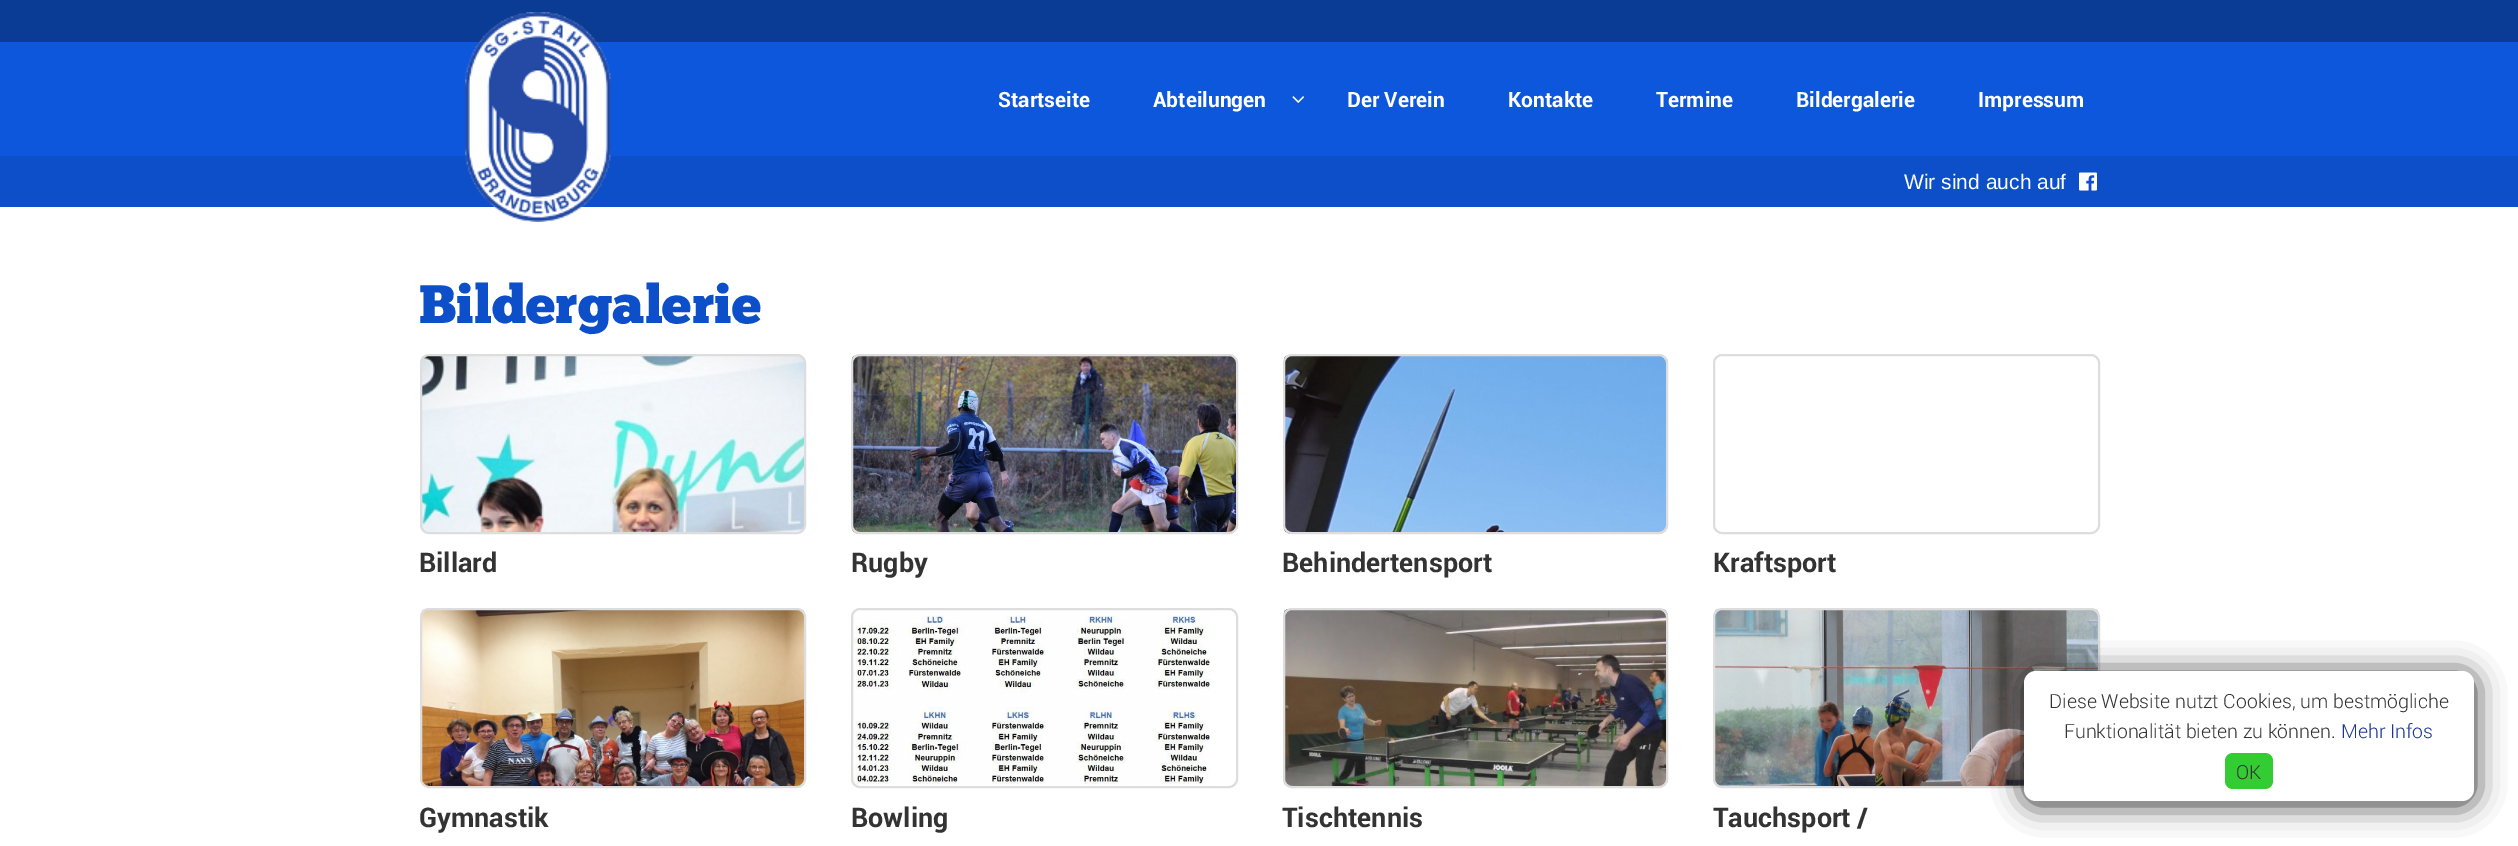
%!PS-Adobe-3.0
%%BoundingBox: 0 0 2518 846
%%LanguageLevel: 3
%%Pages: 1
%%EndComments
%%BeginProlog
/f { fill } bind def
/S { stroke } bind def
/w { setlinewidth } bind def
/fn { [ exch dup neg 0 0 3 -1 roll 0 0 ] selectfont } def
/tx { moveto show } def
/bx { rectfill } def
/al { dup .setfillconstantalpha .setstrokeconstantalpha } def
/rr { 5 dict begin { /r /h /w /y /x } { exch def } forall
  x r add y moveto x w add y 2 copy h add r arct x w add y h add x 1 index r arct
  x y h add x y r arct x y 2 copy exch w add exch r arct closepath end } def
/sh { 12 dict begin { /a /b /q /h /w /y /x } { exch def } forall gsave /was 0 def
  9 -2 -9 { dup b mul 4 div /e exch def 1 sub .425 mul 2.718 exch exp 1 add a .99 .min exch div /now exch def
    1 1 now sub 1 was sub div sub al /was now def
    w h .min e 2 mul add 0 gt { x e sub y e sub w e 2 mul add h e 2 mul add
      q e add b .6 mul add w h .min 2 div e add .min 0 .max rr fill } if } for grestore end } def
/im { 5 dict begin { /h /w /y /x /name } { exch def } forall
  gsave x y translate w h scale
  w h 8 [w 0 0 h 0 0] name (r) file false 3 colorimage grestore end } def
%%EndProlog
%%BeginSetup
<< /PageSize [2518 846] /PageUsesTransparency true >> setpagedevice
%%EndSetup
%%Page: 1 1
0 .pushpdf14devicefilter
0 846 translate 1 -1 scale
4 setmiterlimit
1 setgray
0 0 2518 846 bx
0.039 0.235 0.588 setrgbcolor
0 0 2518 42 bx
0.051 0.341 0.863 setrgbcolor
0 42 2518 114 bx
0.047 0.31 0.788 setrgbcolor
0 156 2518 51 bx
(image0.raw) 465 12 146 210 im
/Roboto-Bold 21 fn
1 setgray
(Startseite) 998 107 tx
(Abteilungen) 1153 107 tx
(image1.raw) 1292 96 12 7 im
(Der Verein) 1347 107 tx
(Kontakte) 1508 107 tx
(Termine) 1656 107 tx
(Bildergalerie) 1796 107 tx
(Impressum) 1978 107 tx
/LiberationSans-Regular 21 fn
(Wir sind auch auf) 1904 189 tx
(image2.raw) 2079 172 18 19 im
/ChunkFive-Regular 54 fn
0.047 0.31 0.788 setrgbcolor
(Bildergalerie) 419 323 tx
(image3.raw) 421 355 385 179 im
0.867 setgray
2 w
421 355 384 178 8 rr S
/Roboto-Bold 27 fn
0.2 setgray
(Billard) 419 572 tx
(image4.raw) 852 355 384 179 im
0.867 setgray
852 355 385 178 8 rr S
0.2 setgray
(Rugby) 851 572 tx
(image5.raw) 1284 355 384 179 im
0.867 setgray
1284 355 383 178 8 rr S
0.2 setgray
(Behindertensport) 1282 572 tx
0.867 setgray
1714 355 385 178 8 rr S
0.2 setgray
(Kraftsport) 1713 572 tx
(image6.raw) 421 609 385 179 im
0.867 setgray
421 609 384 178 8 rr S
0.2 setgray
(Gymnastik) 419 827 tx
(image7.raw) 852 615 358 170 im
0.867 setgray
852 609 385 178 8 rr S
0.2 setgray
(Bowling) 851 827 tx
(image8.raw) 1284 609 384 179 im
0.867 setgray
1284 609 383 178 8 rr S
0.2 setgray
(Tischtennis) 1282 827 tx
(image9.raw) 1714 609 385 179 im
0.867 setgray
1714 609 385 178 8 rr S
0.2 setgray
(Tauchsport /) 1713 827 tx
0.133 setgray
2024 674 450 130 12 15 1 sh
1 setgray
2024 671 450 130 12 rr f
/Roboto-Light 19.5 fn
0.2 setgray
(Diese Website nutzt Cookies, um bestmögliche) 2049 708 tx
(Funktionalität bieten zu können.) 2064 738 tx
0.11 0.208 0.576 setrgbcolor
(Mehr Infos) 2341 738 tx
0.2 0.8 0.2 setrgbcolor
2225 753 48 36 8 rr f
0.2 setgray
(OK) 2236 779 tx
.poppdf14devicefilter showpage
%%EOF
